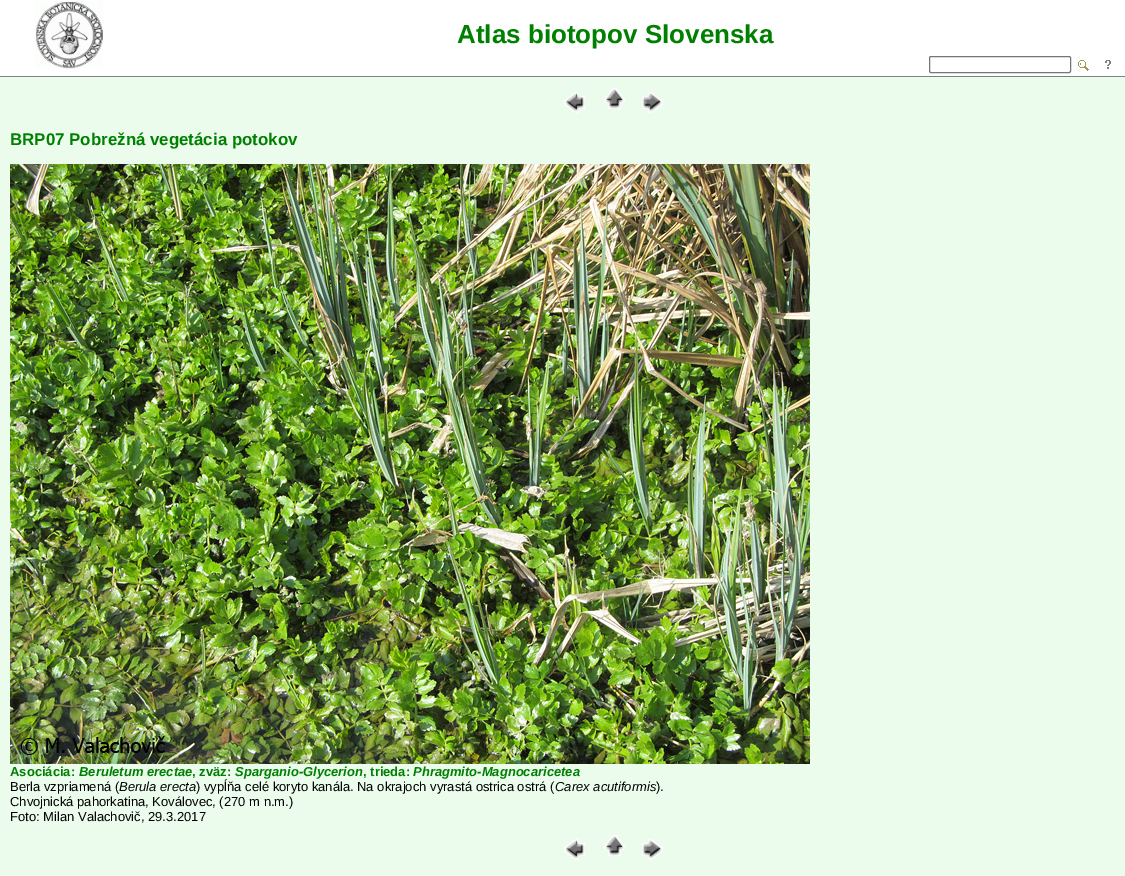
%!PS-Adobe-3.0
%%BoundingBox: 0 0 1125 876
%%LanguageLevel: 3
%%Pages: 1
%%EndComments
%%BeginProlog
/S { stroke } bind def
/fn { [ exch dup neg 0 0 3 -1 roll 0 0 ] selectfont } def
/tx { moveto show } def
/bx { rectfill } def
/rr { 5 dict begin { /r /h /w /y /x } { exch def } forall
  x r add y moveto x w add y 2 copy h add r arct x w add y h add x 1 index r arct
  x y h add x y r arct x y 2 copy exch w add exch r arct closepath end } def
/im { 5 dict begin { /h /w /y /x /name } { exch def } forall
  gsave x y translate w h scale
  w h 8 [w 0 0 h 0 0] name (r) file false 3 colorimage grestore end } def
%%EndProlog
%%BeginSetup
<< /PageSize [1125 876] >> setpagedevice
%%EndSetup
%%Page: 1 1
0 876 translate 1 -1 scale
4 setmiterlimit
0.922 0.984 0.925 setrgbcolor
0 0 1125 876 bx
1 setgray
0 0 1125 76 bx
0.502 setgray
0 76 1125 1 bx
(image0.raw) 35 1 68 68 im
/LiberationSans-Bold 26 fn
0 0.502 0 setrgbcolor
(Atlas biotopov Slovenska) 457 43 tx
0.463 setgray
929.5 56.5 141 16 1.5 rr S
(image1.raw) 1078 60 11 11 im
(image2.raw) 1105 60 6 9 im
(image3.raw) 564 92 21 21 im
(image4.raw) 604 88 21 21 im
(image5.raw) 642 92 21 21 im
/LiberationSans-Bold 16.9 fn
0 0.502 0 setrgbcolor
(BRP07 Pobrežná vegetácia potokov) 10 145 tx
(image6.raw) 10 164 800 600 im
/LiberationSans-Bold 13 fn
(Asociácia:) 10 776 tx
/LiberationSans-BoldItalic 13 fn
(Beruletum erectae) 79 776 tx
/LiberationSans-Bold 13 fn
(, zväz:) 192 776 tx
/LiberationSans-BoldItalic 13 fn
(Sparganio-Glycerion) 235 776 tx
/LiberationSans-Bold 13 fn
(, trieda:) 363 776 tx
/LiberationSans-BoldItalic 13 fn
(Phragmito-Magnocaricetea) 413 776 tx
/LiberationSans-Regular 13 fn
0 setgray
(Berla vzpriamená \() 10 791 tx
/LiberationSans-Italic 13 fn
(Berula erecta) 119 791 tx
/LiberationSans-Regular 13 fn
(\) vypĺňa celé koryto kanála. Na okrajoch vyrastá ostrica ostrá \() 196 791 tx
/LiberationSans-Italic 13 fn
(Carex acutiformis) 555 791 tx
/LiberationSans-Regular 13 fn
(\).) 656 791 tx
(Chvojnická pahorkatina, Koválovec, \(270 m n.m.\)) 10 806 tx
(Foto: Milan Valachovič, 29.3.2017) 10 821 tx
(image3.raw) 564 839 21 21 im
(image4.raw) 604 835 21 21 im
(image5.raw) 642 839 21 21 im
showpage
%%EOF
